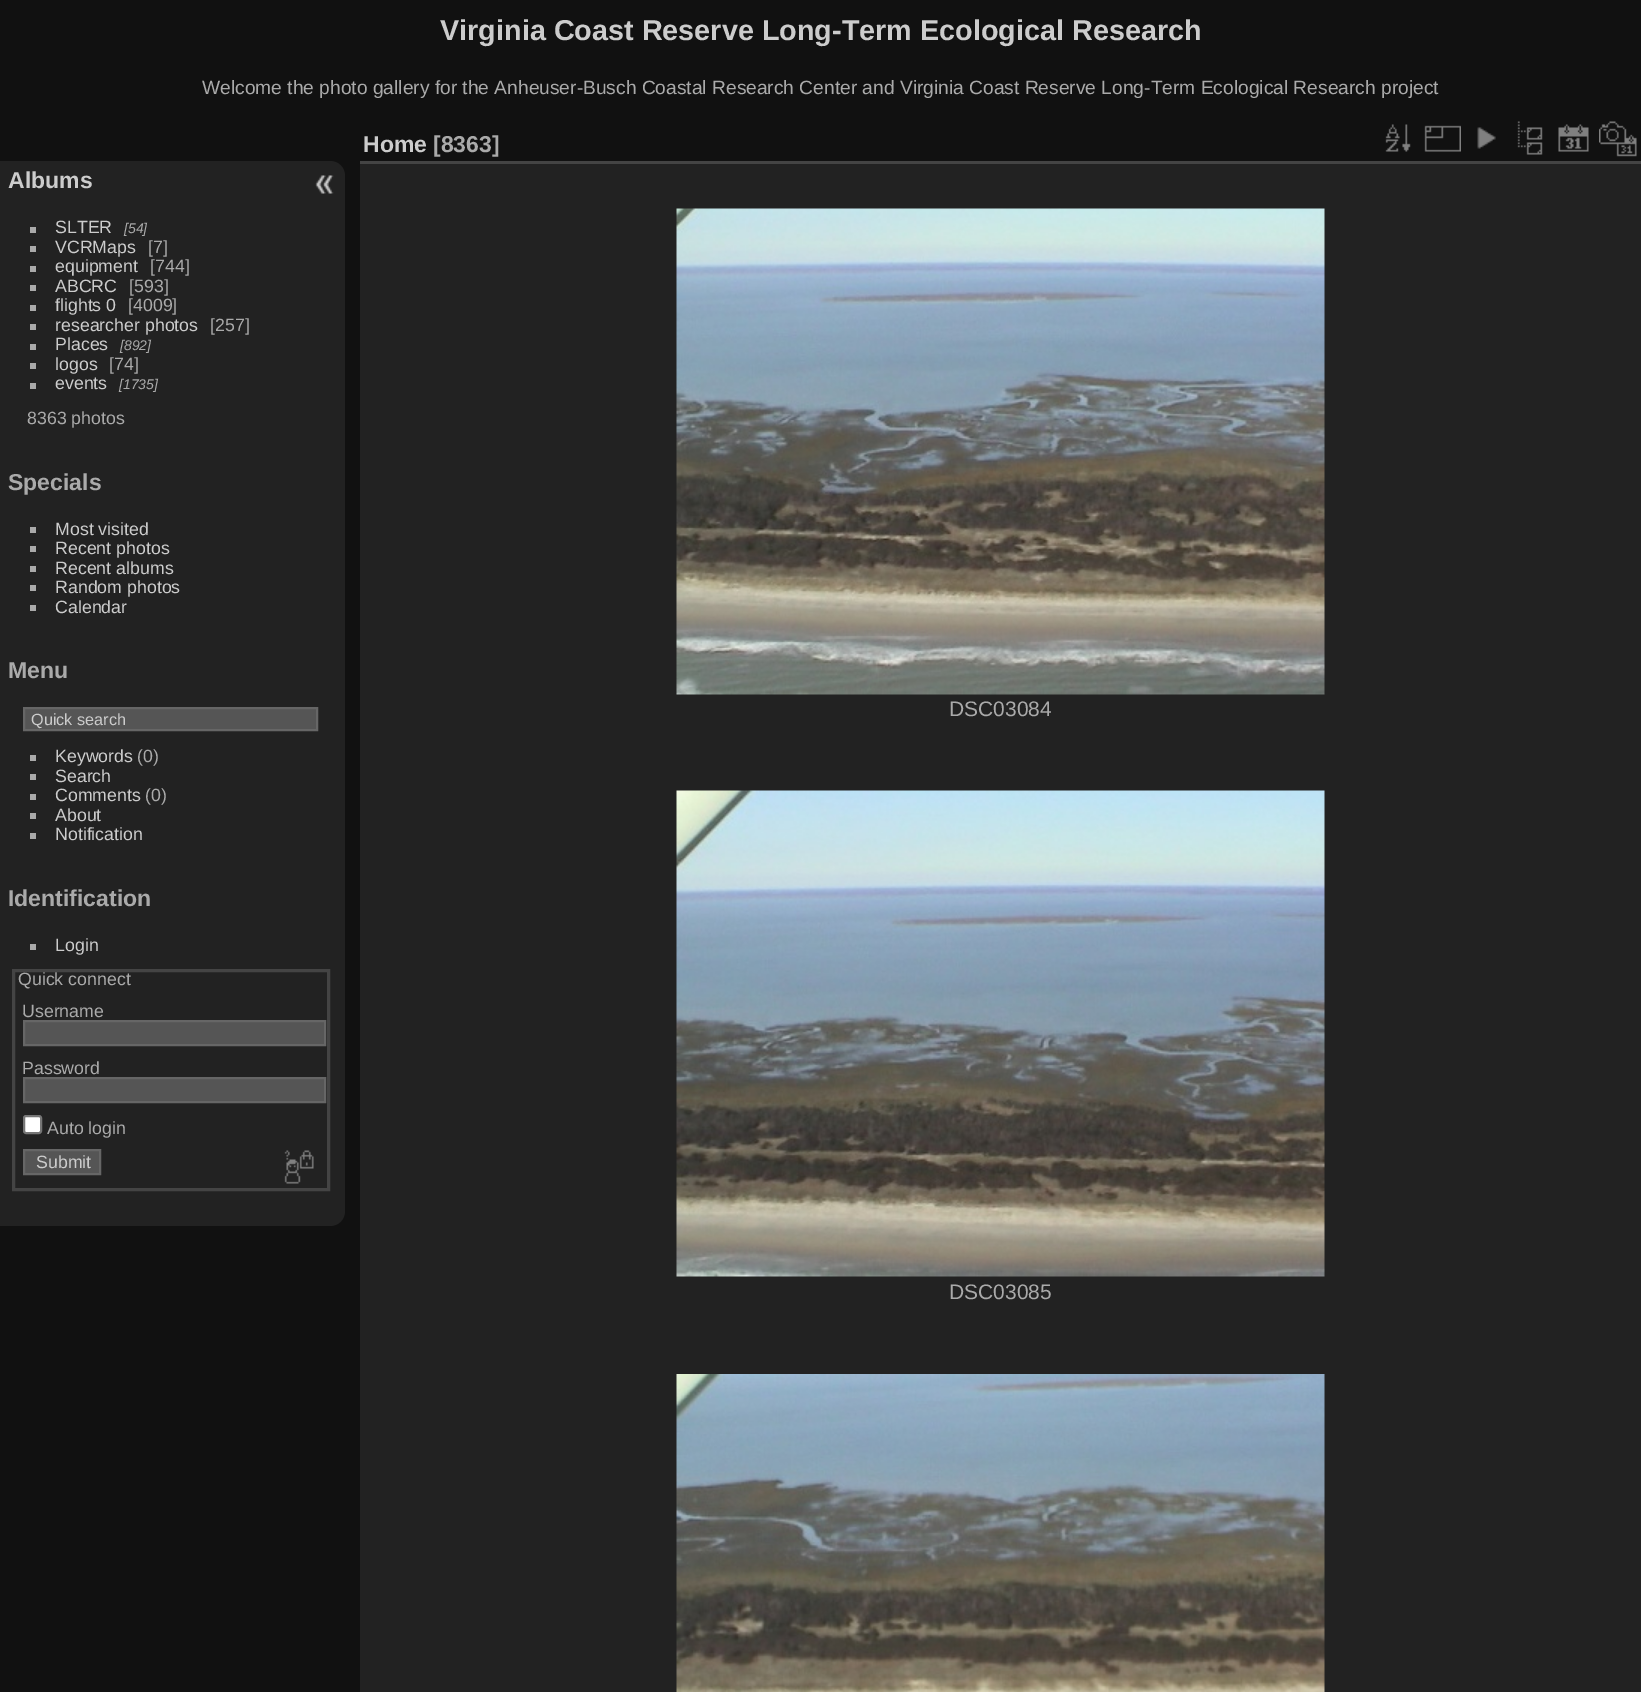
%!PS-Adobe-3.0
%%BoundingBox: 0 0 1641 1692
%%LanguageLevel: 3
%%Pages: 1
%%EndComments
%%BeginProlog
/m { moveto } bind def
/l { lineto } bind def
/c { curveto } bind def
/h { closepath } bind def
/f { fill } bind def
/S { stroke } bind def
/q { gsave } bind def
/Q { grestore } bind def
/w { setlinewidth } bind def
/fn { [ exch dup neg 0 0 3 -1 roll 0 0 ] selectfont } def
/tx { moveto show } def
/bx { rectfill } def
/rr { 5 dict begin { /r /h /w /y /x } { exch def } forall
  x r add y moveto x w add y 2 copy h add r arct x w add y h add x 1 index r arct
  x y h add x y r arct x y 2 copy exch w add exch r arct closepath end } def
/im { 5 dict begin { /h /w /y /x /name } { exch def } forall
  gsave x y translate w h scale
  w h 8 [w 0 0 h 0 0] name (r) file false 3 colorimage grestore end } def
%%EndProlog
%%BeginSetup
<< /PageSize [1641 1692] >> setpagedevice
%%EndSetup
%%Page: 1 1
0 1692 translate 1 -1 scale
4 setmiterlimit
0.067 setgray
0 0 1641 1692 bx
/LiberationSans-Bold 28.8 fn
0.8 setgray
(Virginia Coast Reserve Long-Term Ecological Research) 440 40 tx
/LiberationSans-Regular 19.2 fn
0.667 setgray
(Welcome the photo gallery for the Anheuser-Busch Coastal Research Center and Virginia Coast Reserve Long-Term Ecological Research project) 202 94 tx
0.133 setgray
0 161 m 330 161 l 338.5 161 345 167.5 345 176 c 345 1211 l 345 1219.5 338.5 1226 330 1226 c 0 1226 l h f
/LiberationSans-Bold 23 fn
0.8 setgray
(Albums) 8 188 tx
0.667 setgray
30 227 6 6 bx
/LiberationSans-Regular 17.75 fn
0.8 setgray
(SLTER) 55 233 tx
/LiberationSans-Italic 14 fn
0.667 setgray
([54]) 124 233 tx
30 246 6 6 bx
/LiberationSans-Regular 17.75 fn
0.8 setgray
(VCRMaps) 55 253 tx
0.667 setgray
([7]) 148 253 tx
30 266 6 6 bx
0.8 setgray
(equipment) 55 272 tx
0.667 setgray
([744]) 150 272 tx
30 285 6 6 bx
0.8 setgray
(ABCRC) 55 292 tx
0.667 setgray
([593]) 129 292 tx
30 305 6 6 bx
0.8 setgray
(flights 0) 55 311 tx
0.667 setgray
([4009]) 128 311 tx
30 324 6 6 bx
0.8 setgray
(researcher photos) 55 331 tx
0.667 setgray
([257]) 210 331 tx
30 344 6 6 bx
0.8 setgray
(Places) 55 350 tx
/LiberationSans-Italic 14 fn
0.667 setgray
([892]) 120 350 tx
30 363 6 6 bx
/LiberationSans-Regular 17.75 fn
0.8 setgray
(logos) 55 370 tx
0.667 setgray
([74]) 109 370 tx
30 383 6 6 bx
0.8 setgray
(events) 55 389 tx
/LiberationSans-Italic 14 fn
0.667 setgray
([1735]) 119 389 tx
/LiberationSans-Regular 17.75 fn
(8363 photos) 27 424 tx
/LiberationSans-Bold 23 fn
(Specials) 8 490 tx
30 527 6 6 bx
/LiberationSans-Regular 17.75 fn
0.8 setgray
(Most visited) 55 535 tx
0.667 setgray
30 546 6 6 bx
0.8 setgray
(Recent photos) 55 554 tx
0.667 setgray
30 566 6 6 bx
0.8 setgray
(Recent albums) 55 574 tx
0.667 setgray
30 585 6 6 bx
0.8 setgray
(Random photos) 55 593 tx
0.667 setgray
30 605 6 6 bx
0.8 setgray
(Calendar) 55 613 tx
/LiberationSans-Bold 23 fn
0.667 setgray
(Menu) 8 678 tx
0.333 setgray
24 708 m 317 708 l 317 730 l 24 730 l h q f Q
0.4 setgray
2 w
S
/LiberationSans-Regular 16.25 fn
0.8 setgray
(Quick search) 31 725 tx
0.667 setgray
30 755 6 6 bx
/LiberationSans-Regular 17.75 fn
0.8 setgray
(Keywords) 55 762 tx
0.667 setgray
(\(0\)) 137 762 tx
30 774 6 6 bx
0.8 setgray
(Search) 55 782 tx
0.667 setgray
30 794 6 6 bx
0.8 setgray
(Comments) 55 801 tx
0.667 setgray
(\(0\)) 145 801 tx
30 813 6 6 bx
0.8 setgray
(About) 55 821 tx
0.667 setgray
30 833 6 6 bx
0.8 setgray
(Notification) 55 840 tx
/LiberationSans-Bold 23 fn
0.667 setgray
(Identification) 8 906 tx
30 944 6 6 bx
/LiberationSans-Regular 17.75 fn
0.8 setgray
(Login) 55 951 tx
0.267 setgray
3 w
13.5 970.5 315 219 rectstroke
0.667 setgray
(Quick connect) 18 985 tx
(Username) 22 1017 tx
0.333 setgray
24 1021 m 325 1021 l 325 1045 l 24 1045 l h q f Q
0.4 setgray
2 w
S
0.667 setgray
(Password) 22 1074 tx
0.333 setgray
24 1078 m 325 1078 l 325 1102 l 24 1102 l h q f Q
0.4 setgray
S
1 setgray
24 1116 17 17 2 rr q f Q
0.463 setgray
S
0.667 setgray
(Auto login) 47 1134 tx
0.333 setgray
24 1150 m 100 1150 l 100 1174 l 24 1174 l h q f Q
0.4 setgray
S
0.8 setgray
(Submit) 36 1168 tx
(image0.raw) 284 1150 30 34 im
(image1.raw) 315 175 19 19 im
0.133 setgray
360 164 1281 1528 bx
0.267 setgray
360 161 1281 3 bx
/LiberationSans-Bold 23 fn
0.8 setgray
(Home) 363 152 tx
0.667 setgray
([8363]) 433 152 tx
(image2.raw) 1385 124 26 28 im
(image3.raw) 1424 125 37 27 im
(image4.raw) 1477 127 19 22 im
(image5.raw) 1517 121 26 34 im
(image6.raw) 1558 124 31 28 im
(image7.raw) 1599 121 38 36 im
(image8.raw) 676 208 649 487 im
/LiberationSans-Regular 21 fn
(DSC03084) 949 716 tx
(image9.raw) 676 790 649 487 im
(DSC03085) 949 1299 tx
(image10.raw) 676 1374 649 318 im
showpage
%%EOF
